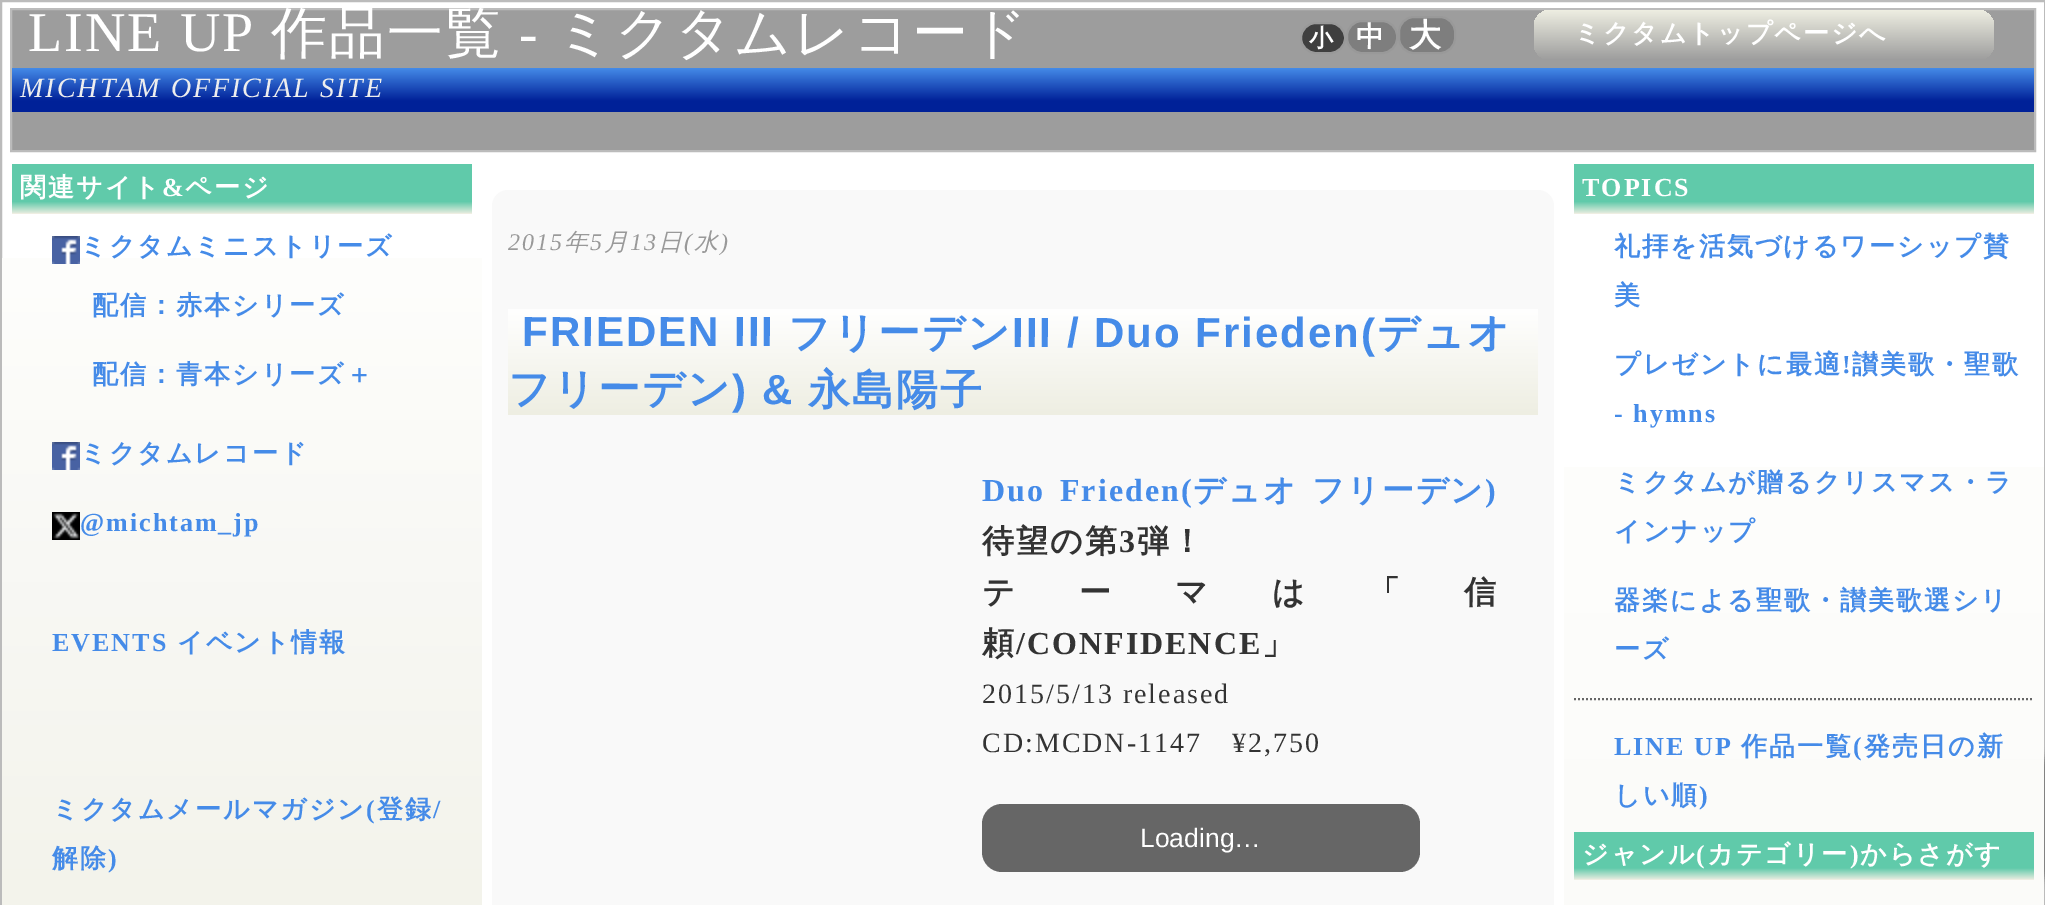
%!PS-Adobe-3.0
%%BoundingBox: 0 0 2045 905
%%LanguageLevel: 3
%%Pages: 1
%%EndComments
%%BeginProlog
/m { moveto } bind def
/l { lineto } bind def
/h { closepath } bind def
/f { fill } bind def
/S { stroke } bind def
/q { gsave } bind def
/Q { grestore } bind def
/w { setlinewidth } bind def
/fn { [ exch dup neg 0 0 3 -1 roll 0 0 ] selectfont } def
/tx { moveto show } def
/bx { rectfill } def
/al { dup .setfillconstantalpha .setstrokeconstantalpha } def
/rr { 5 dict begin { /r /h /w /y /x } { exch def } forall
  x r add y moveto x w add y 2 copy h add r arct x w add y h add x 1 index r arct
  x y h add x y r arct x y 2 copy exch w add exch r arct closepath end } def
/sh { 12 dict begin { /a /b /q /h /w /y /x } { exch def } forall gsave /was 0 def
  9 -2 -9 { dup b mul 4 div /e exch def 1 sub .425 mul 2.718 exch exp 1 add a .99 .min exch div /now exch def
    1 1 now sub 1 was sub div sub al /was now def
    w h .min e 2 mul add 0 gt { x e sub y e sub w e 2 mul add h e 2 mul add
      q e add b .6 mul add w h .min 2 div e add .min 0 .max rr fill } if } for grestore end } def
/im { 5 dict begin { /h /w /y /x /name } { exch def } forall
  gsave x y translate w h scale
  w h 8 [w 0 0 h 0 0] name (r) file false 3 colorimage grestore end } def
%%EndProlog
%%BeginSetup
<< /PageSize [2045 905] /PageUsesTransparency true >> setpagedevice
%%EndSetup
%%Page: 1 1
0 .pushpdf14devicefilter
0 905 translate 1 -1 scale
4 setmiterlimit
1 setgray
0 0 2045 905 bx
0.733 setgray
2 w
1 1 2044 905 rectstroke
0.616 setgray
11 9 m 2035 9 l 2035 151 l 11 151 l h q f Q
0.733 setgray
S
/LiberationSerif-Regular 56 fn
1 setgray
28 51 m 2 0 (LINE UP) ashow
/WenQuanYiZenHei-Medium 56 fn
271 52 m 2 0 (作品一覧) ashow
/LiberationSerif-Regular 56 fn
519 52 m 2 0 (-) ashow
/WenQuanYiZenHei-Medium 56 fn
556 52 m 2 0 (ミクタムレコード) ashow
q 12 68 m 2034 68 l 2034 112 l 12 112 l h clip newpath
<< /ShadingType 2 /ColorSpace /DeviceRGB /Coords [1023 68 1023 112] /Extend [true true] /Function << /FunctionType 3 /Domain [0 1] /Functions [<< /FunctionType 2 /Domain [0 1] /C0 [0.271 0.545 0.91] /C1 [0 0.129 0.596] /N 1 >> << /FunctionType 2 /Domain [0 1] /C0 [0 0.129 0.596] /C1 [0 0.129 0.596] /N 1 >>] /Bounds [0.75] /Encode [0 1 0 1] >> >> shfill Q
/LiberationSerif-Italic 28 fn
0.933 setgray
20 97 m 2 0 (MICHTAM OFFICIAL SITE) ashow
0.247 setgray
1301 23 44 30 15 rr q f Q
0.6 setgray
S
/WenQuanYiZenHei-Bold 24 fn
1 setgray
1309 46 m 2 0 (小) ashow
0.494 setgray
1347 21 50 32 15 rr q f Q
0.6 setgray
S
/WenQuanYiZenHei-Bold 28 fn
1 setgray
1356 46 m 2 0 (中) ashow
0.494 setgray
1399 17 56 36 15 rr q f Q
0.6 setgray
S
/WenQuanYiZenHei-Bold 32 fn
1 setgray
1409 46 m 2 0 (大) ashow
q 1534 10 460 50 16 rr clip newpath
<< /ShadingType 2 /ColorSpace /DeviceRGB /Coords [1764 10 1764 60] /Extend [true true] /Function << /FunctionType 2 /Domain [0 1] /C0 [0.933 0.933 0.886] /C1 [0.616 0.616 0.616] /N 1 >> >> shfill Q
/WenQuanYiZenHei-Bold 26 fn
1574 42 m 2 0 (ミクタムトップページへ) ashow
q 2 258 m 482 258 l 482 905 l 2 905 l h clip newpath
<< /ShadingType 2 /ColorSpace /DeviceRGB /Coords [242 164 242 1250] /Extend [true true] /Function << /FunctionType 2 /Domain [0 1] /C0 [1 1 1] /C1 [0.933 0.933 0.886] /N 1 >> >> shfill Q
q 12 164 m 472 164 l 472 214 l 12 214 l h clip newpath
<< /ShadingType 2 /ColorSpace /DeviceRGB /Coords [242 164 242 214] /Extend [true true] /Function << /FunctionType 3 /Domain [0 1] /Functions [<< /FunctionType 2 /Domain [0 1] /C0 [0.376 0.792 0.667] /C1 [0.376 0.792 0.667] /N 1 >> << /FunctionType 2 /Domain [0 1] /C0 [0.376 0.792 0.667] /C1 [0.933 0.933 0.886] /N 1 >>] /Bounds [0.75] /Encode [0 1 0 1] >> >> shfill Q
20 196 m 2 0 (関連サイト) ashow
/LiberationSerif-Bold 26 fn
162 196 m 2 0 (&) ashow
/WenQuanYiZenHei-Bold 26 fn
185 196 m 2 0 (ページ) ashow
(image0.raw) 52 236 28 28 im
0.271 0.545 0.91 setrgbcolor
80 255 m 2 0 (ミクタムミニストリーズ) ashow
92 314 m 2 0 (配信：赤本シリーズ) ashow
92 383 m 2 0 (配信：青本シリーズ＋) ashow
(image0.raw) 52 442 28 28 im
80 462 m 2 0 (ミクタムレコード) ashow
(image1.raw) 52 512 28 28 im
/LiberationSerif-Bold 26 fn
80 531 m 2 0 (@michtam_jp) ashow
52 651 m 2 0 (EVENTS) ashow
/WenQuanYiZenHei-Bold 26 fn
177 651 m 2 0 (イベント情報) ashow
52 818 m 2 0 (ミクタムメールマガジン) ashow
/LiberationSerif-Bold 26 fn
366 818 m 2 0 (\() ashow
/WenQuanYiZenHei-Bold 26 fn
377 818 m 2 0 (登録) ashow
/LiberationSerif-Bold 26 fn
433 818 m 2 0 (/) ashow
/WenQuanYiZenHei-Bold 26 fn
52 867 m 2 0 (解除) ashow
/LiberationSerif-Bold 26 fn
108 867 m 2 0 (\)) ashow
0.976 setgray
492 190 1062 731 16 rr f
/LiberationSerif-Italic 24 fn
0.6 setgray
508 250 m 2 0 (2015) ashow
/WenQuanYiZenHei-MediumItalic 24 fn
564 250 m 2 0 (年) ashow
/LiberationSerif-Italic 24 fn
590 250 m 2 0 (5) ashow
/WenQuanYiZenHei-MediumItalic 24 fn
604 250 m 2 0 (月) ashow
/LiberationSerif-Italic 24 fn
630 250 m 2 0 (13) ashow
/WenQuanYiZenHei-MediumItalic 24 fn
658 250 m 2 0 (日) ashow
/LiberationSerif-Italic 24 fn
684 250 m 2 0 (\() ashow
/WenQuanYiZenHei-MediumItalic 24 fn
694 250 m 2 0 (水) ashow
/LiberationSerif-Italic 24 fn
720 250 m 2 0 (\)) ashow
q 508 309 m 1538 309 l 1538 415 l 508 415 l h clip newpath
<< /ShadingType 2 /ColorSpace /DeviceRGB /Coords [1023 309 1023 415] /Extend [true true] /Function << /FunctionType 2 /Domain [0 1] /C0 [1 1 1] /C1 [0.933 0.933 0.886] /N 1 >> >> shfill Q
/LiberationSans-Bold 42 fn
0.271 0.545 0.91 setrgbcolor
q 522 346 translate 0.1 rotate 0 0 m 2 0 (FRIEDEN III) ashow Q
/WenQuanYiZenHei-Bold 42 fn
q 788 347 translate 0.1 rotate 0 0 m 2 0 (フリーデン) ashow Q
/LiberationSans-Bold 42 fn
q 1012 347 translate 0.1 rotate 0 0 m 2 0 (III / Duo Frieden\() ashow Q
/WenQuanYiZenHei-Bold 42 fn
q 1377 347 translate 0.1 rotate 0 0 m 2 0 (デュオ) ashow Q
q 508 403 translate 0.1 rotate 0 0 m 2 0 (フリーデン) ashow Q
/LiberationSans-Bold 42 fn
q 732 404 translate 0.1 rotate 0 0 m 2 0 (\) &) ashow Q
/WenQuanYiZenHei-Bold 42 fn
q 808 404 translate 0.1 rotate 0 0 m 2 0 (永島陽子) ashow Q
/LiberationSerif-Bold 32 fn
982 501 m 5 0 32 2 0 (Duo Frieden\() awidthshow
/WenQuanYiZenHei-Bold 32 fn
1193 501 m 2 0 (デュオ) ashow
1312 501 m 2 0 (フリーデン) ashow
/LiberationSerif-Bold 32 fn
1485 501 m 2 0 (\)) ashow
/WenQuanYiZenHei-Bold 32 fn
0.2 setgray
982 552 m 2 0 (待望の第) ashow
/LiberationSerif-Bold 32 fn
1119 552 m 2 0 (3) ashow
/WenQuanYiZenHei-Bold 32 fn
1137 552 m 2 0 (弾！) ashow
982 603 m 64 0 (テーマは「信) ashow
982 654 m 2 0 (頼) ashow
/LiberationSerif-Bold 32 fn
1016 654 m 2 0 (/CONFIDENCE) ashow
/WenQuanYiZenHei-Bold 32 fn
1262 654 m 2 0 (」) ashow
/LiberationSerif-Regular 28 fn
982 703 m 2 0 (2015/5/13 released) ashow
982 752 m 2 0 (CD:MCDN-1147) ashow
1232 752 m 2 0 (¥2,750) ashow
0.4 setgray
982 804 438 68 20 rr f
/LiberationSans-Regular 26.5 fn
1 setgray
(Loading…) 1140 847 tx
0.502 setgray
1906 758 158 120 4 5 1 sh
q 1564 467 m 2044 467 l 2044 905 l 1564 905 l h clip newpath
<< /ShadingType 2 /ColorSpace /DeviceRGB /Coords [1804 164 1804 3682] /Extend [true true] /Function << /FunctionType 2 /Domain [0 1] /C0 [1 1 1] /C1 [0.933 0.933 0.886] /N 1 >> >> shfill Q
q 1574 164 m 2034 164 l 2034 214 l 1574 214 l h clip newpath
<< /ShadingType 2 /ColorSpace /DeviceRGB /Coords [1804 164 1804 214] /Extend [true true] /Function << /FunctionType 3 /Domain [0 1] /Functions [<< /FunctionType 2 /Domain [0 1] /C0 [0.376 0.792 0.667] /C1 [0.376 0.792 0.667] /N 1 >> << /FunctionType 2 /Domain [0 1] /C0 [0.376 0.792 0.667] /C1 [0.933 0.933 0.886] /N 1 >>] /Bounds [0.75] /Encode [0 1 0 1] >> >> shfill Q
/LiberationSerif-Bold 26 fn
1 setgray
1582 196 m 2 0 (TOPICS) ashow
/WenQuanYiZenHei-Bold 26 fn
0.271 0.545 0.91 setrgbcolor
1614 255 m 2 0 (礼拝を活気づけるワーシップ賛) ashow
1614 304 m 2 0 (美) ashow
1614 373 m 2 0 (プレゼントに最適) ashow
/LiberationSerif-Bold 26 fn
1842 373 m 2 0 (!) ashow
/WenQuanYiZenHei-Bold 26 fn
1852 373 m 2 0 (讃美歌・聖歌) ashow
/LiberationSerif-Bold 26 fn
1614 422 m 2 0 (- hymns) ashow
/WenQuanYiZenHei-Bold 26 fn
1614 491 m 2 0 (ミクタムが贈るクリスマス・ラ) ashow
1614 540 m 2 0 (インナップ) ashow
1614 609 m 2 0 (器楽による聖歌・讃美歌選シリ) ashow
1614 658 m 2 0 (ーズ) ashow
0.4 setgray
[2 2] 0 setdash
1574 699 m 2034 699 l S
/LiberationSerif-Bold 26 fn
0.271 0.545 0.91 setrgbcolor
1614 755 m 2 0 (LINE UP) ashow
/WenQuanYiZenHei-Bold 26 fn
1741 755 m 2 0 (作品一覧) ashow
/LiberationSerif-Bold 26 fn
1853 755 m 2 0 (\() ashow
/WenQuanYiZenHei-Bold 26 fn
1864 755 m 2 0 (発売日の新) ashow
1614 804 m 2 0 (しい順) ashow
/LiberationSerif-Bold 26 fn
1699 804 m 2 0 (\)) ashow
q 1574 832 m 2034 832 l 2034 880 l 1574 880 l h clip newpath
<< /ShadingType 2 /ColorSpace /DeviceRGB /Coords [1804 832 1804 880] /Extend [true true] /Function << /FunctionType 3 /Domain [0 1] /Functions [<< /FunctionType 2 /Domain [0 1] /C0 [0.376 0.792 0.667] /C1 [0.376 0.792 0.667] /N 1 >> << /FunctionType 2 /Domain [0 1] /C0 [0.376 0.792 0.667] /C1 [0.933 0.933 0.886] /N 1 >>] /Bounds [0.75] /Encode [0 1 0 1] >> >> shfill Q
/WenQuanYiZenHei-Bold 26 fn
1 setgray
1582 863 m 2 0 (ジャンル) ashow
/LiberationSerif-Bold 26 fn
1696 863 m 2 0 (\() ashow
/WenQuanYiZenHei-Bold 26 fn
1707 863 m 2 0 (カテゴリー) ashow
/LiberationSerif-Bold 26 fn
1850 863 m 2 0 (\)) ashow
/WenQuanYiZenHei-Bold 26 fn
1860 863 m 2 0 (からさがす) ashow
.poppdf14devicefilter showpage
%%EOF
